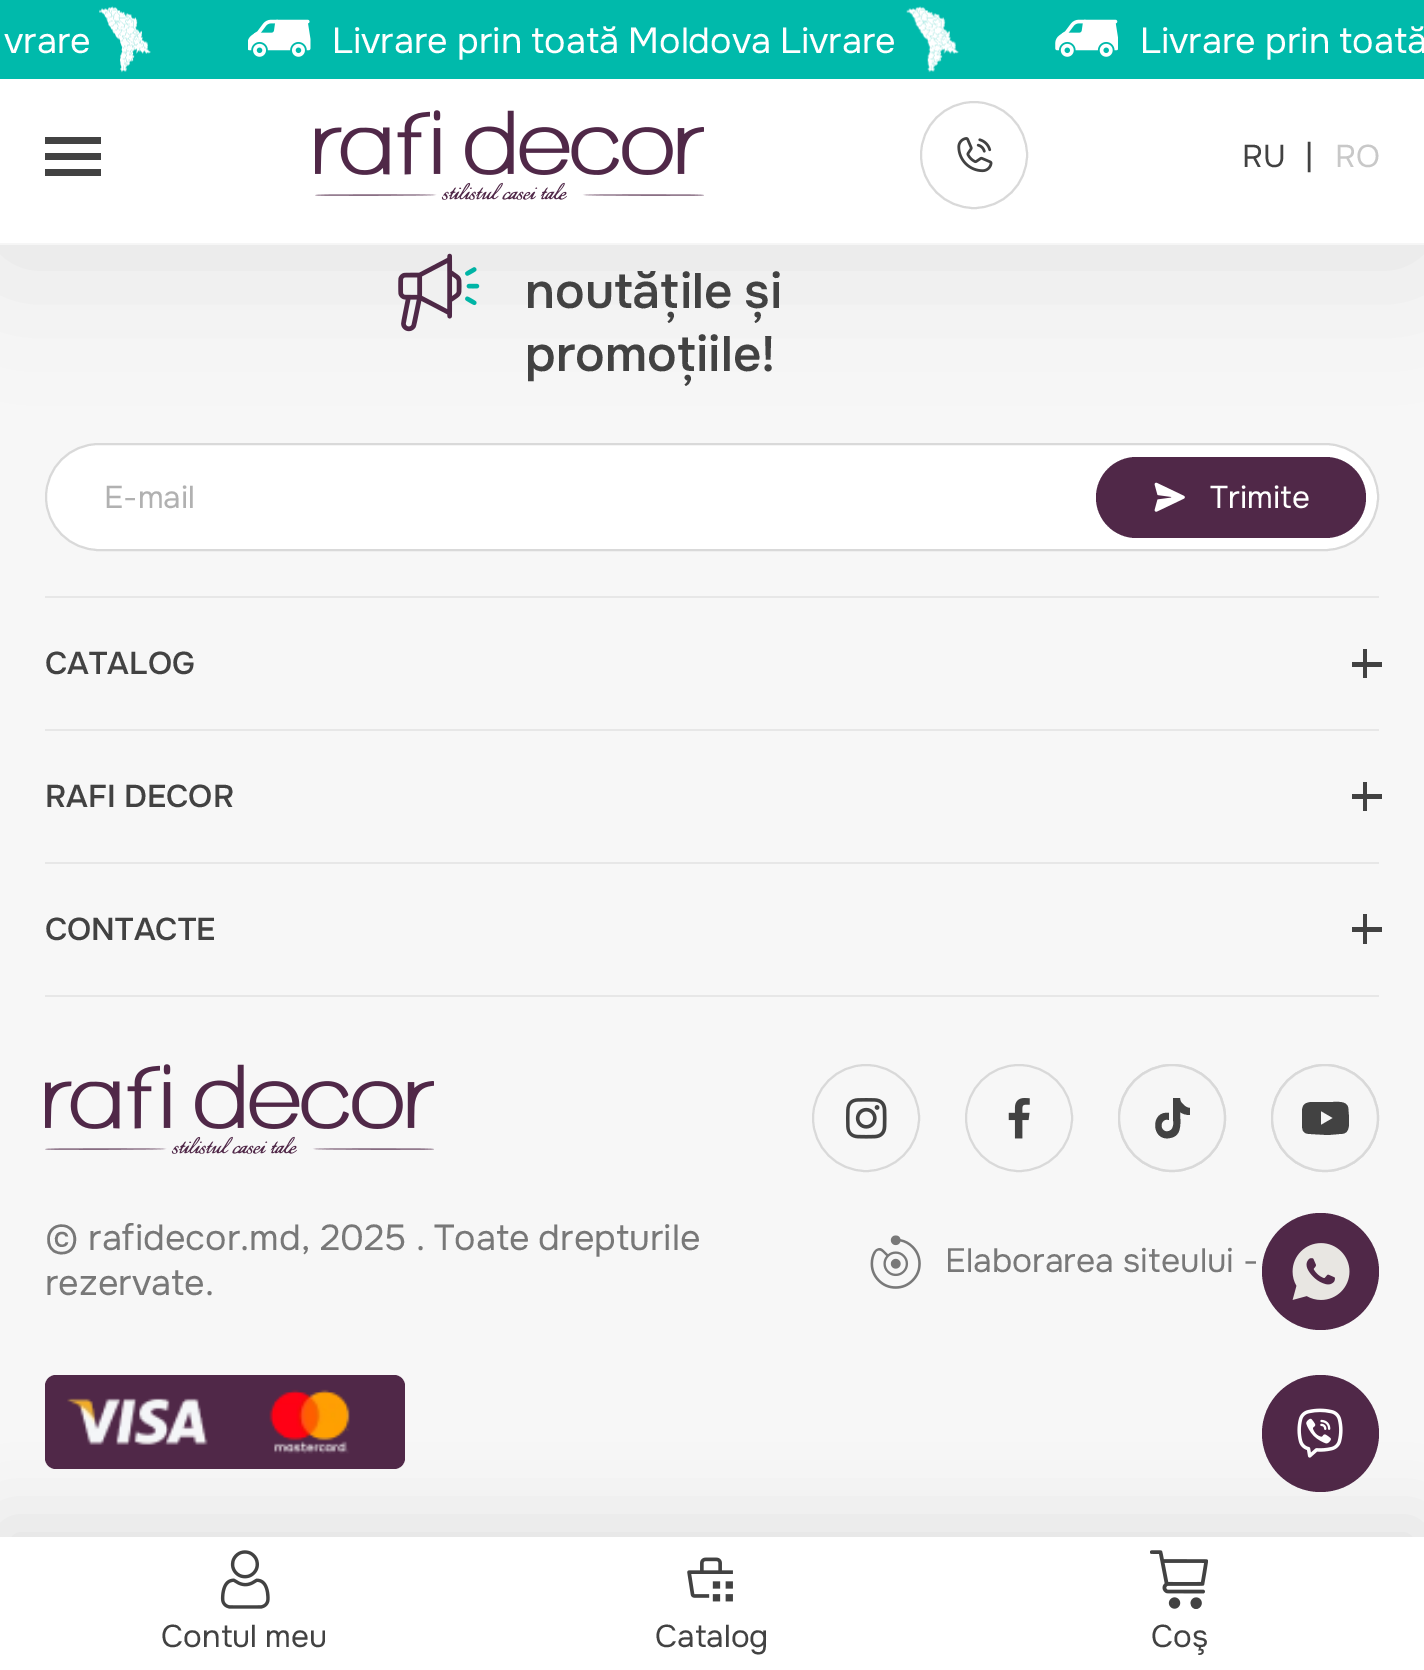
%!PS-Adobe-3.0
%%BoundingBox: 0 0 1424 1670
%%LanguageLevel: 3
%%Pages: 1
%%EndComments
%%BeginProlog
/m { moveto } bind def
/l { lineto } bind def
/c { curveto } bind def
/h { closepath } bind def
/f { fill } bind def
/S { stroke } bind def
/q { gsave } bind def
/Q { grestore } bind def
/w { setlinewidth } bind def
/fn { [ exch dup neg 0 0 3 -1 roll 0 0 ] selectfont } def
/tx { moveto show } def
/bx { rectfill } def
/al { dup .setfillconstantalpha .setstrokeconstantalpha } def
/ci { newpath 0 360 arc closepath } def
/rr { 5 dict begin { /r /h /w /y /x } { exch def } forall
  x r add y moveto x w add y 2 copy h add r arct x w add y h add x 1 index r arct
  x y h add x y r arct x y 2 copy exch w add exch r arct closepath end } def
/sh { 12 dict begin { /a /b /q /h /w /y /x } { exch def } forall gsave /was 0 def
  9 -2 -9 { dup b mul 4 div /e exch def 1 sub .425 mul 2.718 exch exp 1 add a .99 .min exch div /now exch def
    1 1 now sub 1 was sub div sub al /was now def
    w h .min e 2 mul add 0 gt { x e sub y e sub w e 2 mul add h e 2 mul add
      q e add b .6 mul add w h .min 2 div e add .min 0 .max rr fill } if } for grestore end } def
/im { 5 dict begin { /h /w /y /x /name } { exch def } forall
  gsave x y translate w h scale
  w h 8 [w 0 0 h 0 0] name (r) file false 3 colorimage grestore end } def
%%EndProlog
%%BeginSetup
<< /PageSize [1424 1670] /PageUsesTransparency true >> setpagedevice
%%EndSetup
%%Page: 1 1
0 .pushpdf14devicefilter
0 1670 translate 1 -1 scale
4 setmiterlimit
0.969 setgray
0 0 1424 1670 bx
(image6.raw) 398 253 82 79 im
1 setgray
46 444 1332 106 53 rr q f Q
0.851 setgray
2 w
S
0.314 0.157 0.282 setrgbcolor
1096 457 270 81 40.5 rr f
0 setgray
0 9 1424 245 0 67.5 0.08 sh
1 setgray
0 79 1424 164 bx
0.965 setgray
0 243 1424 2 bx
0 0.729 0.671 setrgbcolor
0 0 1424 79 bx
/Onest-Regular 36 fn
1 setgray
4 53 m -0.5 0 32 (vrare) widthshow
(image0.raw) 99 6 52 67 im
(image1.raw) 248 19 63 38 im
332 53 m -0.5 0 32 (Livrare prin toată Moldova Livrare) widthshow
(image2.raw) 906 6 53 67 im
(image3.raw) 1055 19 63 38 im
1140 53 m -0.5 0 32 (Livrare prin toată) widthshow
0.259 setgray
45 137 56 7 bx
45 153 56 7 bx
45 169 56 7 bx
(image4.raw) 315 110 389 90 im
0.851 setgray
974 155 53 ci S
(image5.raw) 957 137 36 36 im
/Onest-Regular 31.5 fn
0.259 setgray
(RU) 1242 167 tx
(|) 1305 167 tx
0.784 setgray
(RO) 1335 167 tx
/Onest-Medium 49.5 fn
0.259 setgray
525 308 m -2 0 32 (noutățile și) widthshow
(promoțiile!) 525 371 tx
/Onest-Regular 31.5 fn
0.694 setgray
(E-mail) 104 508 tx
(image7.raw) 1154 482 31 30 im
1 setgray
(Trimite) 1210 508 tx
0.906 setgray
45 596 1334 2 bx
/Onest-Medium 31.5 fn
0.259 setgray
(CATALOG) 45 674 tx
1352 662 30 5 bx
1363 649 4 29 bx
0.906 setgray
45 729 1334 2 bx
0.259 setgray
(RAFI DECOR) 45 807 tx
1352 794 30 5 bx
1363 782 4 29 bx
0.906 setgray
45 862 1334 2 bx
0.259 setgray
(CONTACTE) 45 940 tx
1352 927 30 5 bx
1363 914 4 30 bx
0.906 setgray
45 995 1334 2 bx
(image8.raw) 45 1064 389 90 im
0.851 setgray
866 1118 53 ci S
(image9.raw) 846 1098 41 41 im
1019 1118 53 ci S
(image10.raw) 1008 1098 22 41 im
1172 1118 53 ci S
0.965 setgray
1172 1118 53 ci f
q
1118 1064 108 108 rectclip
0.851 setgray
2.2 w
1172 1118 53 ci S
Q
0.259 setgray
1183 1104 m 1181 1103 1180 1100 1180 1098 c 1173 1098 l 1173 1117 l 1173 1121 1175 1129 1169 1131 c 1159 1134 1159 1117 1169 1120 c 1169 1113 l 1150 1110 1151 1142 1170 1138 c 1183 1136 1180 1121 1180 1112 c 1183 1114 1186 1115 1190 1115 c 1190 1108 l 1190 1108 1186 1108 1183 1104 c h f
0.851 setgray
1325 1118 53 ci S
0.965 setgray
1325 1118 53 ci f
q
1271 1064 108 108 rectclip
0.851 setgray
2.2 w
1325 1118 53 ci S
Q
0.259 setgray
1348 1107 m 1346 1101 1338 1102 1333 1102 c 1311 1102 l 1305 1103 1303 1104 1302 1110 c 1302 1123 l 1302 1131 1303 1134 1311 1134 c 1328 1135 l 1339 1134 l 1346 1134 1348 1132 1349 1125 c 1349 1119 1349 1113 1348 1107 c h 1321 1125 m 1321 1111 l 1333 1118 l h f
/Onest-Regular 36 fn
0.471 setgray
(© rafidecor.md, 2025) 45 1250 tx
416 1250 m -1 0 32 (. Toate drepturile) widthshow
(rezervate.) 45 1295 tx
(image11.raw) 870 1235 51 54 im
/Onest-Regular 33.75 fn
(Elaborarea siteului -) 945 1272 tx
0.314 0.157 0.282 setrgbcolor
45 1375 360 94 11 rr f
(image12.raw) 67 1398 141 47 im
(image13.raw) 269 1389 81 65 im
1320.5 1271.5 58.5 ci f
(image14.raw) 1292 1243 58 57 im
1320.5 1433.5 58.5 ci f
(image15.raw) 1297 1408 46 50 im
0 setgray
0 1523 1424 135 0 36 0.08 sh
1 setgray
0 1537 1424 133 bx
(image16.raw) 220 1550 50 59 im
/Onest-Regular 31.5 fn
0.259 setgray
161 1647 m -1 0 32 (Contul meu) widthshow
(image17.raw) 687 1557 46 45 im
(Catalog) 655 1647 tx
(image18.raw) 1150 1550 58 59 im
(Coş) 1151 1647 tx
.poppdf14devicefilter showpage
%%EOF
